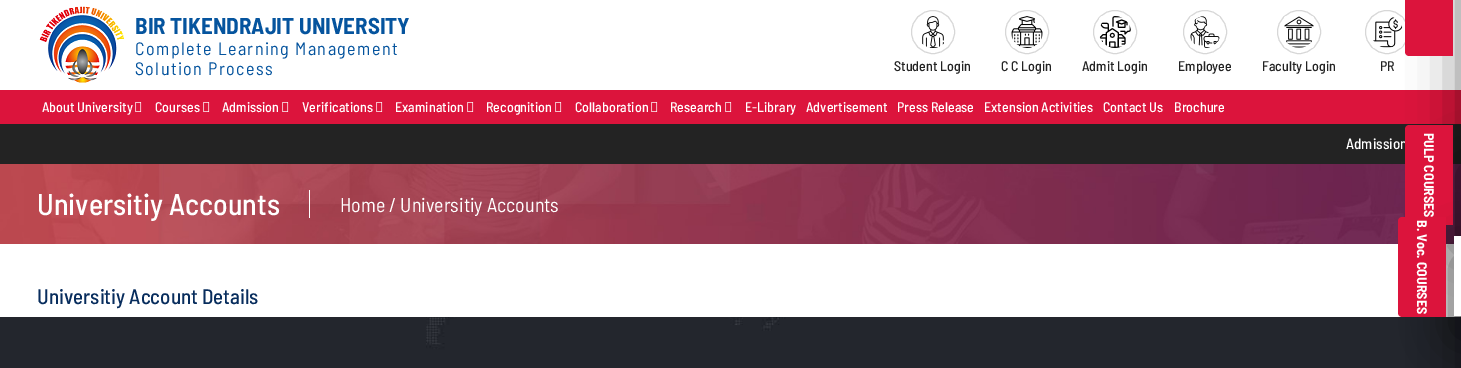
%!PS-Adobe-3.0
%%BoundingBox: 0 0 1461 368
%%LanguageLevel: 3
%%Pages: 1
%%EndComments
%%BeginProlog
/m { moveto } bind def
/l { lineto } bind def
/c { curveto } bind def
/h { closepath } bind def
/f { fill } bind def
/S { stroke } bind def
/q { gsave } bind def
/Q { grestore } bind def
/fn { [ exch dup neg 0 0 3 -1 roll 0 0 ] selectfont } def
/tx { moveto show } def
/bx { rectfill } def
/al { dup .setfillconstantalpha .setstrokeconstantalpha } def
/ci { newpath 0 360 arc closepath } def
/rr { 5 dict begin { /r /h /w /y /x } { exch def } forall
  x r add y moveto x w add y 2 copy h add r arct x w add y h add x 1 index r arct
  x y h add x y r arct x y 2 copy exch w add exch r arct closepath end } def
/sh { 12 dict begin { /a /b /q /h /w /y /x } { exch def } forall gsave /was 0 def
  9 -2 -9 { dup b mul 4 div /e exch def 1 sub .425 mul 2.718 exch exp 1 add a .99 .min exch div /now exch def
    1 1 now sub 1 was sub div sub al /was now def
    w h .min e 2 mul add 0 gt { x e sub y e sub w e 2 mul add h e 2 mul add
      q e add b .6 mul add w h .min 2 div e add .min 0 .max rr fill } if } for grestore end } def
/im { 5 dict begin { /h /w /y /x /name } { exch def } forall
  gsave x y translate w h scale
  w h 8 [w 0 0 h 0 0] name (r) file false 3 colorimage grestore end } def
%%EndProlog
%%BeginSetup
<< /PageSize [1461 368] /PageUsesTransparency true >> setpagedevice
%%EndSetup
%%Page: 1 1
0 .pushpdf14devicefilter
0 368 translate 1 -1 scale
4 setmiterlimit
1 setgray
0 0 1461 368 bx
(image0.raw) 39 6 86 77 im
/BarlowSemiCondensed-Bold 23 fn
0.02 0.329 0.62 setrgbcolor
(BIR TIKENDRAJIT UNIVERSITY) 135 34 tx
/BarlowSemiCondensed-Regular 18 fn
135 55 m 1.4 0 (Complete Learning Management) ashow
135 75 m 1.4 0 (Solution Process) ashow
0.843 setgray
933 32 21.5 ci S
(image1.raw) 922 16 22 32 im
/BarlowSemiCondensed-Medium 14 fn
0.137 setgray
(Student Login) 894 71 tx
0.843 setgray
1027 32 21.5 ci S
(image2.raw) 1011 16 32 32 im
0.137 setgray
(C C Login) 1001 71 tx
0.843 setgray
1115 32 21.5 ci S
(image3.raw) 1099 16 32 32 im
0.137 setgray
(Admit Login) 1082 71 tx
0.843 setgray
1205 32 21.5 ci S
(image4.raw) 1190 16 30 32 im
0.137 setgray
(Employee) 1178 71 tx
0.843 setgray
1299 32 21.5 ci S
(image5.raw) 1284 16 30 32 im
0.137 setgray
(Faculty Login) 1262 71 tx
0.843 setgray
1387 32 21.5 ci S
(image6.raw) 1373 17 30 31 im
0.137 setgray
(PR) 1380 71 tx
0.863 0.078 0.235 setrgbcolor
0 90 1461 34 bx
1 setgray
(About University) 42 112 tx
(image7.raw) 135 102 7 10 im
(Courses) 155 112 tx
(image7.raw) 203 102 7 10 im
(Admission) 222 112 tx
(image7.raw) 282 102 7 10 im
(Verifications) 302 112 tx
(image7.raw) 376 102 7 10 im
(Examination) 395 112 tx
(image7.raw) 467 102 7 10 im
(Recognition) 486 112 tx
(image7.raw) 555 102 7 10 im
(Collaboration) 575 112 tx
(image7.raw) 651 102 7 10 im
(Research) 670 112 tx
(image7.raw) 725 102 7 10 im
(E-Library) 745 112 tx
(Advertisement) 806 112 tx
(Press Release) 897 112 tx
(Extension Activities) 984 112 tx
(Contact Us) 1103 112 tx
(Brochure) 1174 112 tx
0.137 setgray
0 124 1461 40 bx
(image8.raw) 0 164 1461 80 im
(image9.raw) 0 317 1461 51 im
0 setgray
1461 -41 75 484 0 25 0.5 sh
0.863 0.078 0.235 setrgbcolor
1453 -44 m 1453 56 l 1409 56 l 1407 56 1405 54 1405 52 c 1405 -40 l 1405 -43 1407 -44 1409 -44 c h f
/BarlowSemiCondensed-Medium 15 fn
1 setgray
(Admission) 1346 149 tx
0 setgray
1461 164 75 80 0 25 0.5 sh
0.863 0.078 0.235 setrgbcolor
1453 125 m 1453 225 l 1409 225 l 1407 225 1405 223 1405 221 c 1405 129 l 1405 127 1407 125 1409 125 c h f
/BarlowSemiCondensed-Bold 14 fn
1 setgray
q 1424 133 translate 90 rotate 0 0 m (PULP COURSES) show Q
/BarlowSemiCondensed-Medium 30 fn
(Universitiy Accounts) 37 215 tx
309 190 1 28 bx
/BarlowSemiCondensed-Regular 20 fn
(Home / Universitiy Accounts) 340 212 tx
/BarlowSemiCondensed-Medium 21 fn
0.031 0.176 0.365 setrgbcolor
(Universitiy Account Details) 37 304 tx
0 setgray
1454 256 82 80 0 25 0.5 sh
1 setgray
1454 236 7 80 bx
0.863 0.078 0.235 setrgbcolor
1446 217 m 1446 317 l 1402 317 l 1400 317 1398 315 1398 313 c 1398 221 l 1398 219 1400 217 1402 217 c h f
/BarlowSemiCondensed-Bold 14 fn
1 setgray
q 1417 220 translate 90 rotate 0 0 m (B. Voc. COURSES) show Q
.poppdf14devicefilter showpage
%%EOF
